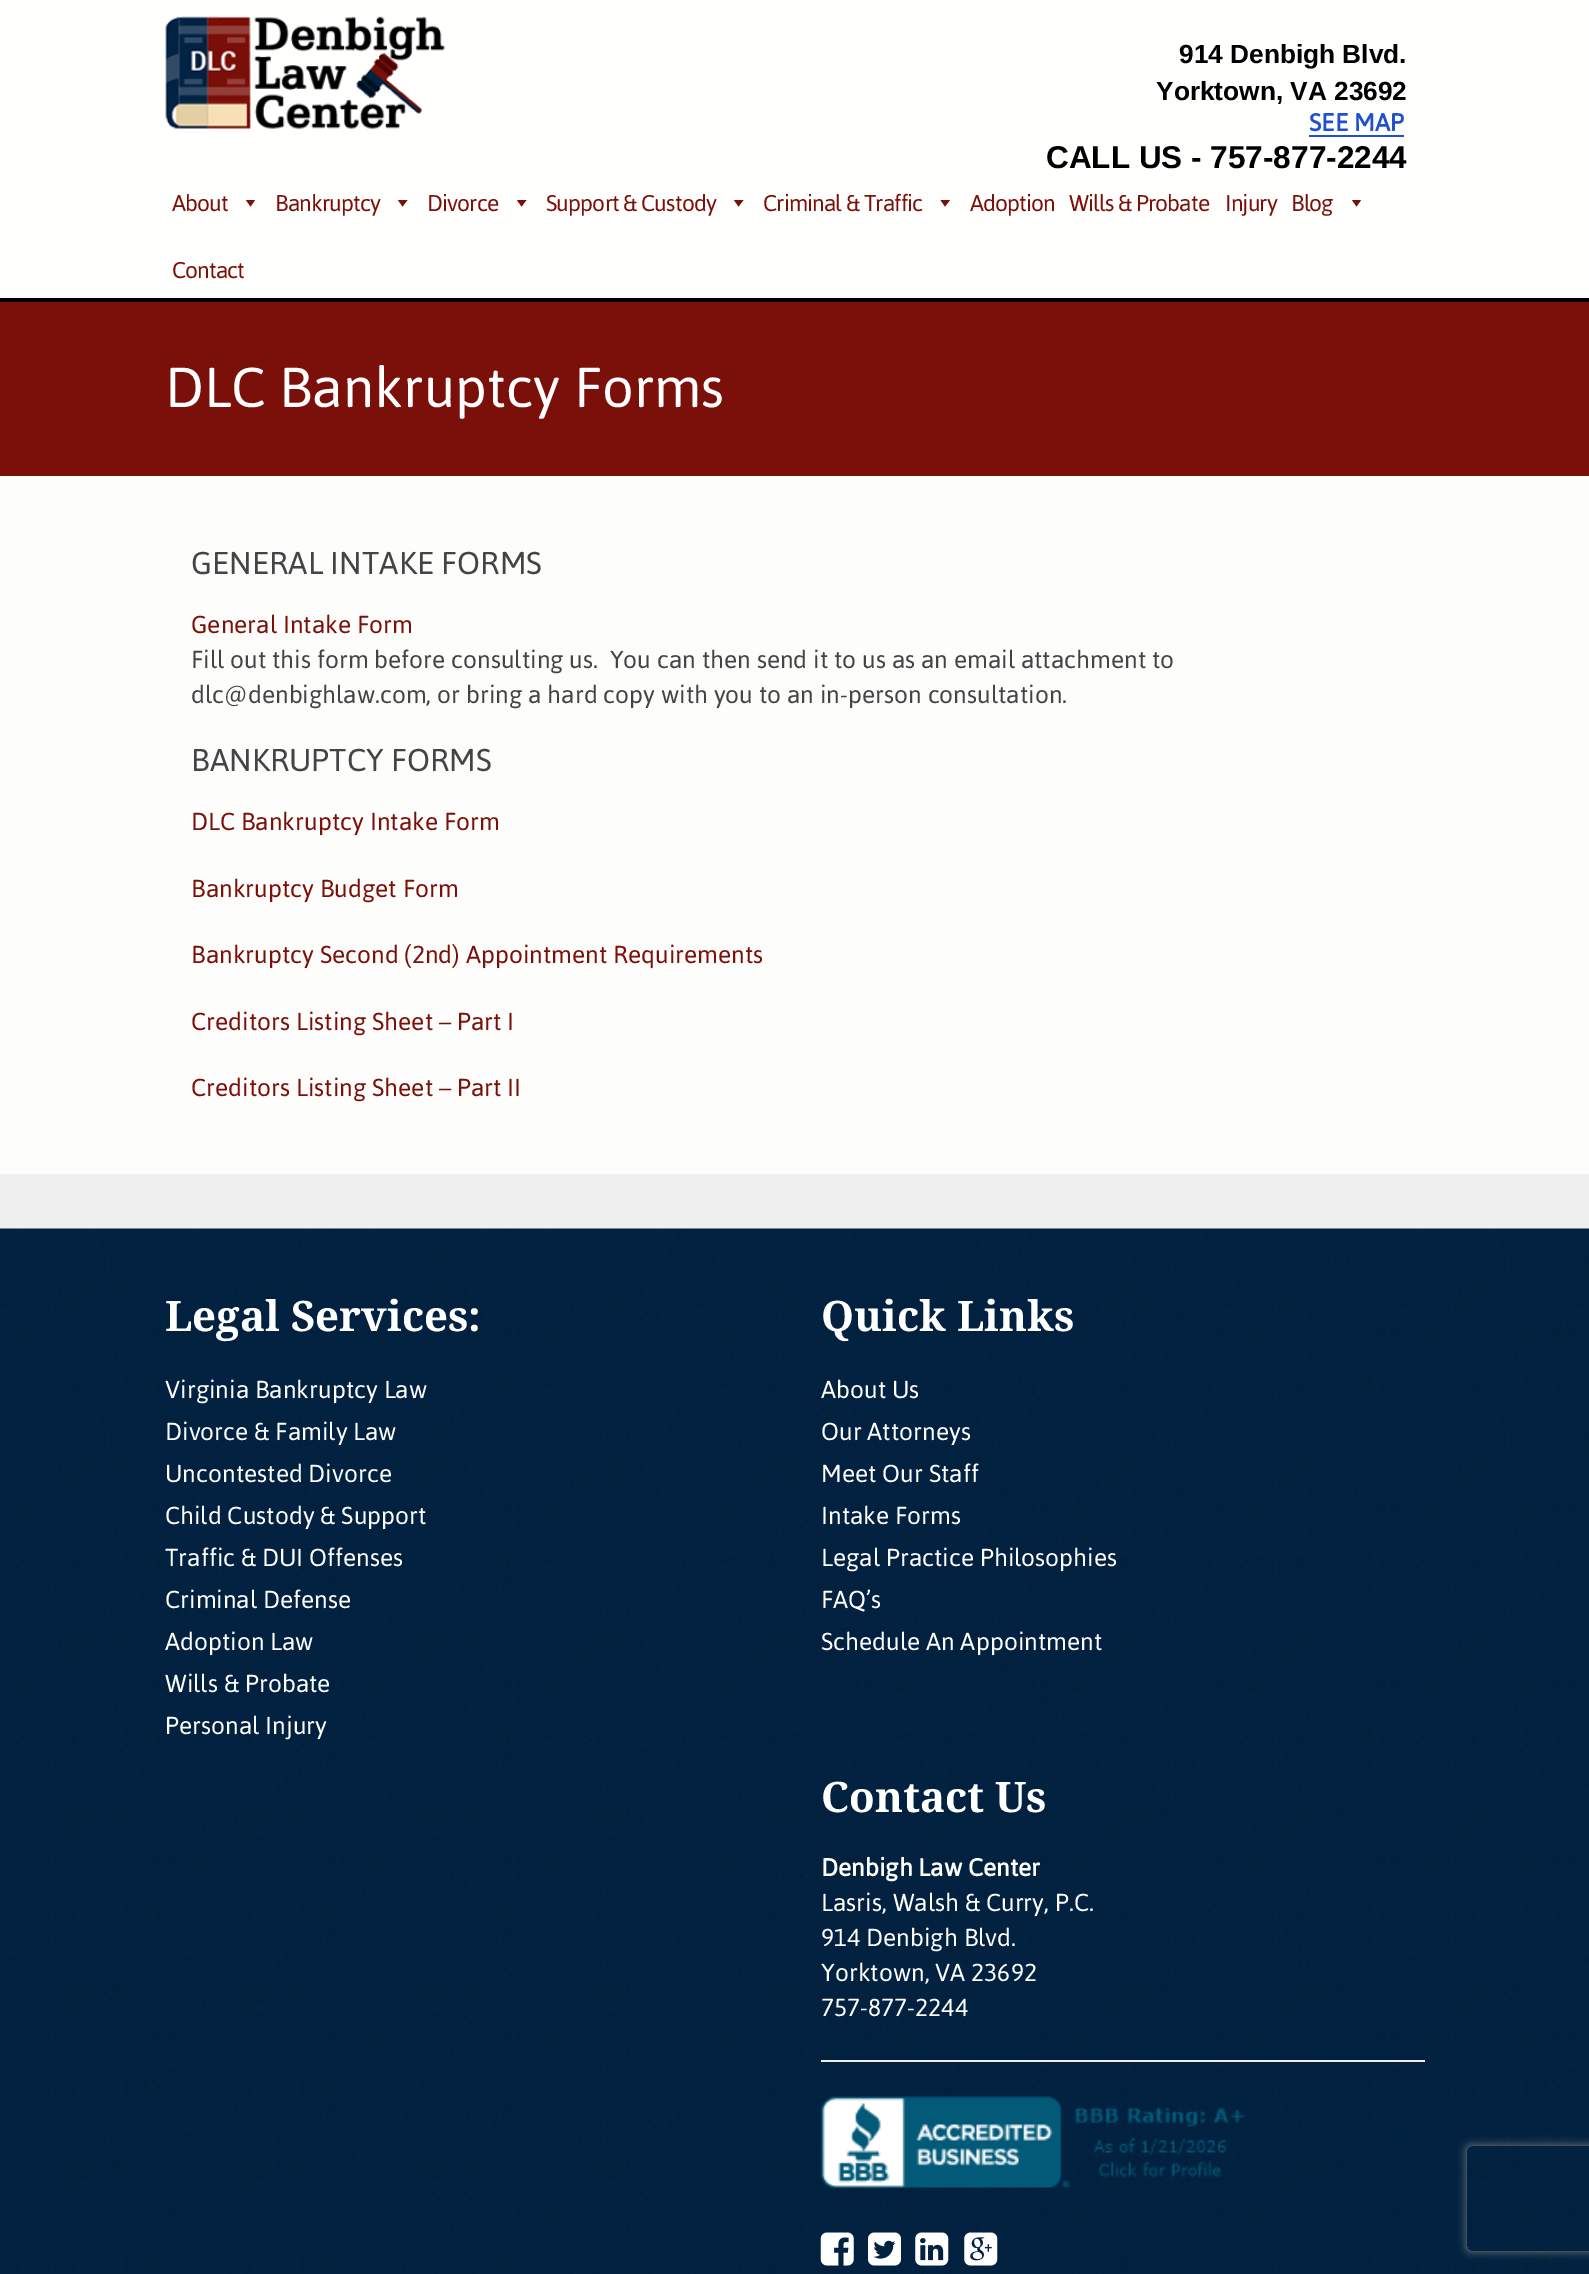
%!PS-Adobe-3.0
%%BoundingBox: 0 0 1589 2274
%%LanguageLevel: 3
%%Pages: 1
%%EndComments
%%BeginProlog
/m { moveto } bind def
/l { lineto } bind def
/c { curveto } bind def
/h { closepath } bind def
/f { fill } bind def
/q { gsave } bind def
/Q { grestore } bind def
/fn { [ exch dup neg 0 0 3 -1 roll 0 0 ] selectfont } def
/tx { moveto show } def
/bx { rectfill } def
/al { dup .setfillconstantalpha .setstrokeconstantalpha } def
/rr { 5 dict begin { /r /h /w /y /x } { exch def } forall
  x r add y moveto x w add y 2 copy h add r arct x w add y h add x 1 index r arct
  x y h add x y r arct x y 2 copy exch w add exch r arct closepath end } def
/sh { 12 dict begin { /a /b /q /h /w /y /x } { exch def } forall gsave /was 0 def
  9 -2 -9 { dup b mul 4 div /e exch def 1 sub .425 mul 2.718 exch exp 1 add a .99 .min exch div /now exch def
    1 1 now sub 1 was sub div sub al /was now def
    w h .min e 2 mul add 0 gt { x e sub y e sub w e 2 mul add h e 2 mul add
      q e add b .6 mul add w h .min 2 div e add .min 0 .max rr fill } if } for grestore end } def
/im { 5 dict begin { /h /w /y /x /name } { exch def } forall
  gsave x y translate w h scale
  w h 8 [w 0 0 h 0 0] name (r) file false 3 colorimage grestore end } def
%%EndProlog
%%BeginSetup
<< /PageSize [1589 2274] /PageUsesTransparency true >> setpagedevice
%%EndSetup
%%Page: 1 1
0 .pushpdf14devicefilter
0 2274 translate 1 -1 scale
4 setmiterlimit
0.992 0.992 0.984 setrgbcolor
0 0 1589 2274 bx
1 1 0.996 setrgbcolor
0 0 1589 298 bx
0 setgray
0 298 1589 4 bx
(image0.raw) 165 16 280 114 im
/LiberationSans-Bold 26.25 fn
(914 Denbigh Blvd.) 1179 63 tx
(Yorktown, VA 23692) 1156 100 tx
0.125 0.31 0.824 setrgbcolor
1309 135 95 2 bx
/Asap-Bold 24.5 fn
(SEE MAP) 1309 131 tx
/LiberationSans-Bold 31.5 fn
0 setgray
(CALL US - 757-877-2244) 1046 168 tx
/Asap-Regular 22.75 fn
0.482 0.059 0.035 setrgbcolor
172 211 m -0.9 0 (About) ashow
255 200 m 250.5 206.5 l 246 200 l h f
275 211 m -0.9 0 (Bankruptcy) ashow
407.5 200 m 402.5 206.5 l 398 200 l h f
427 211 m -0.9 0 (Divorce) ashow
526.5 200 m 521.5 206.5 l 517 200 l h f
546 211 m -0.9 0 (Support & Custody) ashow
743.5 200 m 738.5 206.5 l 734 200 l h f
763 211 m -0.9 0 (Criminal & Traffic) ashow
950 200 m 945 206.5 l 940.5 200 l h f
970 211 m -0.9 0 (Adoption) ashow
1069 211 m -0.9 0 (Wills & Probate) ashow
1225 211 m -0.9 0 (Injury) ashow
1291 211 m -0.9 0 (Blog) ashow
1361 200 m 1356.5 206.5 l 1352 200 l h f
172 278 m -0.9 0 (Contact) ashow
0 302 1589 174 bx
/Asap-Regular 56 fn
1 setgray
(DLC Bankruptcy Forms) 165 407 tx
/Asap-Regular 31.5 fn
0.267 setgray
(GENERAL INTAKE FORMS) 191 574 tx
/Asap-Regular 24.5 fn
0.482 0.059 0.035 setrgbcolor
(General Intake Form) 191 633 tx
0.267 setgray
(Fill out this form before consulting us.  You can then send it to us as an email attachment to) 191 668 tx
(dlc@denbighlaw.com, or bring a hard copy with you to an in-person consultation.) 191 703 tx
/Asap-Regular 31.5 fn
(BANKRUPTCY FORMS) 191 771 tx
/Asap-Regular 24.5 fn
0.482 0.059 0.035 setrgbcolor
(DLC Bankruptcy Intake Form) 191 830 tx
(Bankruptcy Budget Form) 191 897 tx
(Bankruptcy Second \(2nd\) Appointment Requirements) 191 963 tx
(Creditors Listing Sheet – Part I) 191 1030 tx
(Creditors Listing Sheet – Part II) 191 1096 tx
0.937 setgray
0 1174 1589 55 bx
(image1.raw) 0 1228 1589 1046 im
/DroidSerif-Bold 42 fn
1 setgray
(Legal Services:) 165 1331 tx
/Asap-Regular 24.5 fn
(Virginia Bankruptcy Law) 165 1398 tx
(Divorce & Family Law) 165 1440 tx
(Uncontested Divorce) 165 1482 tx
(Child Custody & Support) 165 1524 tx
(Traffic & DUI Offenses) 165 1566 tx
(Criminal Defense) 165 1608 tx
(Adoption Law) 165 1650 tx
(Wills & Probate) 165 1692 tx
(Personal Injury) 165 1734 tx
/DroidSerif-Bold 42 fn
(Quick Links) 821 1331 tx
/Asap-Regular 24.5 fn
(About Us) 821 1398 tx
(Our Attorneys) 821 1440 tx
(Meet Our Staff) 821 1482 tx
(Intake Forms) 821 1524 tx
(Legal Practice Philosophies) 821 1566 tx
(FAQ’s) 821 1608 tx
(Schedule An Appointment) 821 1650 tx
/DroidSerif-Bold 42 fn
(Contact Us) 821 1812 tx
/Asap-Bold 24.5 fn
(Denbigh Law Center) 821 1876 tx
/Asap-Regular 24.5 fn
(Lasris, Walsh & Curry, P.C.) 821 1911 tx
(914 Denbigh Blvd.) 821 1946 tx
(Yorktown, VA 23692) 821 1981 tx
(757-877-2244) 821 2016 tx
0.933 setgray
821 2060 604 2 bx
(image2.raw) 820 2096 425 92 im
(image3.raw) 820 2232 34 34 im
(image4.raw) 868 2232 33 34 im
(image5.raw) 915 2232 34 34 im
(image6.raw) 964 2232 34 34 im
q
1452 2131 m 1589 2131 l 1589 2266 l 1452 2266 l h 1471 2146 m 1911 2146 l 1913 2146 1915 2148 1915 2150 c 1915 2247 l 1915 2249 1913 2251 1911 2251 c 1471 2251 l 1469 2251 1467 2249 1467 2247 c 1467 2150 l 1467 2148 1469 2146 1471 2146 c h eoclip newpath
0.502 setgray
1467 2146 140 105 4 4.5 1 sh
Q
.poppdf14devicefilter showpage
%%EOF
